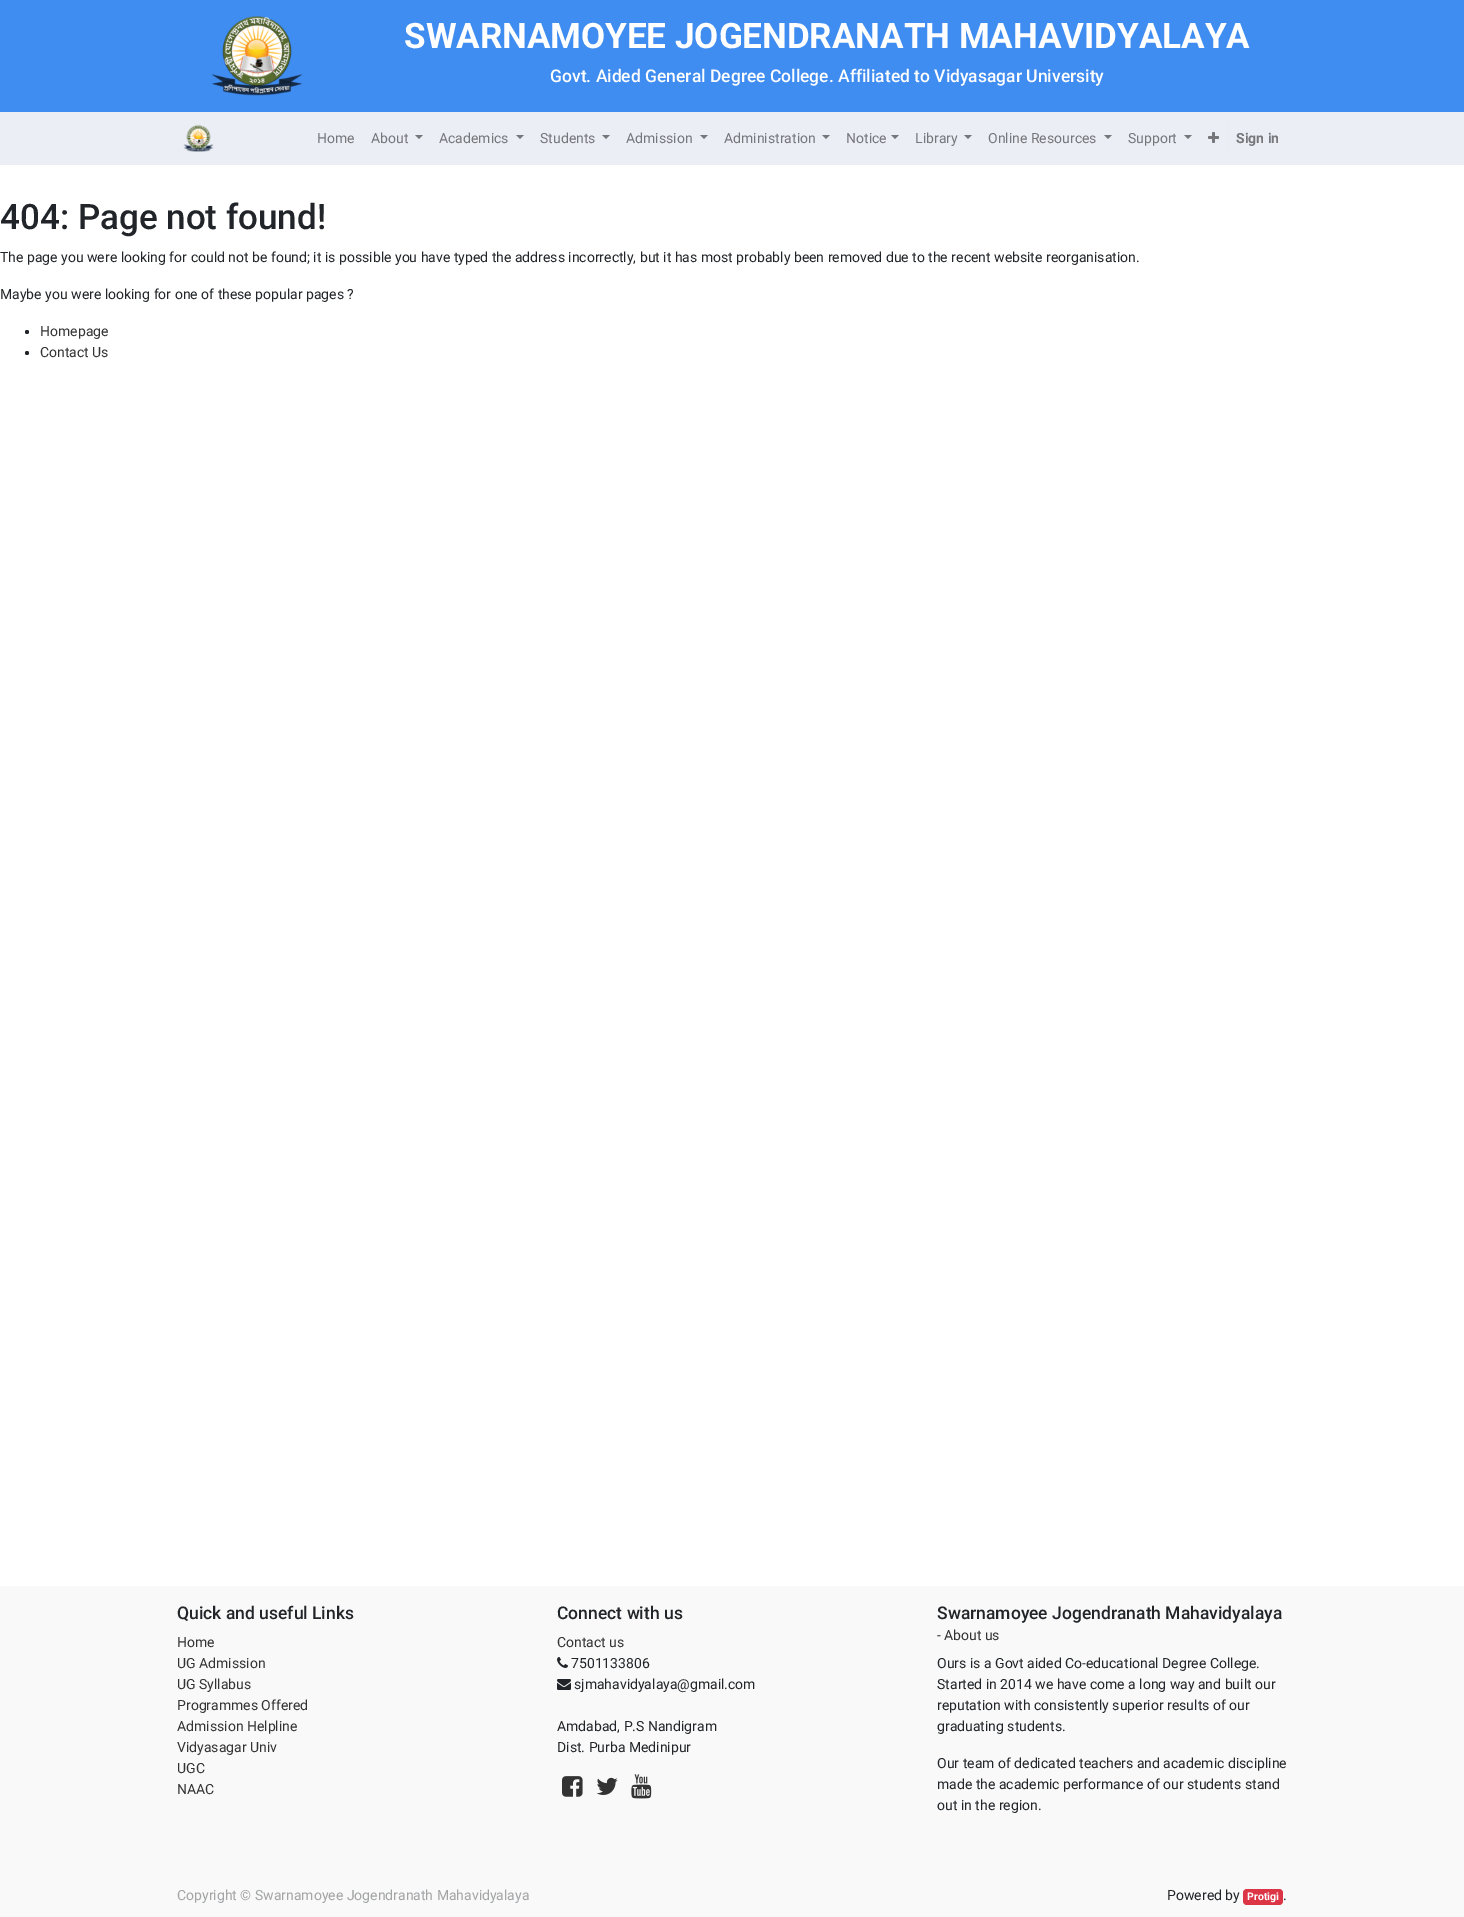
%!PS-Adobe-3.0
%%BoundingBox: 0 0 1464 1917
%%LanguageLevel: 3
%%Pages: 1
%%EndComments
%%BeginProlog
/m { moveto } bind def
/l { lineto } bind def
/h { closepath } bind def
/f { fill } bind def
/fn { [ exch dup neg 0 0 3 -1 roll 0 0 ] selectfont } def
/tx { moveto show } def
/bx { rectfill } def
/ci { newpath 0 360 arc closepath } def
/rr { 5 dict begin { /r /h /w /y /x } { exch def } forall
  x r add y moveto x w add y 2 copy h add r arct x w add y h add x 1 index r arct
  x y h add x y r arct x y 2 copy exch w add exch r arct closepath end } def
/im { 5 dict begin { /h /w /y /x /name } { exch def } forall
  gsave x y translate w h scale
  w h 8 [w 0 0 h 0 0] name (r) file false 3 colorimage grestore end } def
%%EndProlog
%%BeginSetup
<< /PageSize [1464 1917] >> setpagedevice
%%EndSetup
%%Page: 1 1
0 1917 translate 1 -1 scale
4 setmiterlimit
1 setgray
0 0 1464 1917 bx
0.251 0.553 0.945 setrgbcolor
0 0 1464 112 bx
(image0.raw) 212 16 90 80 im
/Roboto-Bold 35 fn
1 setgray
(SWARNAMOYEE JOGENDRANATH MAHAVIDYALAYA) 404 48 tx
/Roboto-Medium 17.5 fn
(Govt. Aided General Degree College. Affiliated to Vidyasagar University) 550 82 tx
0.922 0.933 0.961 setrgbcolor
0 112 1464 53 bx
(image1.raw) 183 124 31 28 im
/Roboto-Regular 14 fn
0.463 0.467 0.482 setrgbcolor
(Home) 317 143 tx
(About) 371 143 tx
415 135 m 423 135 l 419 139 l h f
(Academics) 439 143 tx
516 135 m 524 135 l 520 139 l h f
(Students) 540 143 tx
602 135 m 610 135 l 606 139 l h f
(Admission) 626 143 tx
700 135 m 708 135 l 704 139 l h f
(Administration) 724 143 tx
822 135 m 830 135 l 826 139 l h f
(Notice) 846 143 tx
891 135 m 899 135 l 895 139 l h f
(Library) 915 143 tx
964 135 m 972 135 l 968 139 l h f
(Online Resources) 988 143 tx
1104 135 m 1112 135 l 1108 139 l h f
(Support) 1128 143 tx
1184 135 m 1192 135 l 1188 139 l h f
(image2.raw) 1208 132 11 11 im
0.914 0.925 0.937 setrgbcolor
1227 120 1 37 bx
/Roboto-Bold 14 fn
0.463 0.467 0.482 setrgbcolor
(Sign in) 1236 143 tx
/Roboto-Medium 35 fn
0.129 0.145 0.161 setrgbcolor
(404: Page not found!) 0 229 tx
/Roboto-Regular 14 fn
(The page you were looking for could not be found; it is possible you have typed the address incorrectly, but it has most probably been removed due to the recent website reorganisation.) 0 262 tx
(Maybe you were looking for one of these popular pages ?) 0 299 tx
27 332 2 ci f
0.2 setgray
(Homepage) 40 336 tx
0.129 0.145 0.161 setrgbcolor
27 353 2 ci f
0.2 setgray
(Contact Us) 40 357 tx
0.976 setgray
0 1586 1464 331 bx
/Roboto-Medium 17.5 fn
0.129 0.145 0.161 setrgbcolor
(Quick and useful Links) 177 1619 tx
/Roboto-Regular 14 fn
0.2 setgray
(Home) 177 1647 tx
(UG Admission) 177 1668 tx
(UG Syllabus) 177 1689 tx
(Programmes Offered) 177 1710 tx
(Admission Helpline) 177 1731 tx
(Vidyasagar Univ) 177 1752 tx
(UGC) 177 1773 tx
(NAAC) 177 1794 tx
/Roboto-Medium 17.5 fn
0.129 0.145 0.161 setrgbcolor
(Connect with us) 557 1619 tx
/Roboto-Regular 14 fn
0.2 setgray
(Contact us) 557 1647 tx
(image3.raw) 557 1657 11 11 im
0.129 0.145 0.161 setrgbcolor
(7501133806) 571 1668 tx
(image4.raw) 557 1679 14 11 im
(sjmahavidyalaya@gmail.com) 574 1689 tx
(Amdabad, P.S Nandigram) 557 1731 tx
(Dist. Purba Medinipur) 557 1752 tx
(image5.raw) 562 1776 21 21 im
(image6.raw) 596 1777 22 18 im
(image7.raw) 631 1774 21 25 im
/Roboto-Medium 17.5 fn
(Swarnamoyee Jogendranath Mahavidyalaya) 937 1619 tx
/Roboto-Regular 14 fn
(-) 937 1640 tx
0.2 setgray
(About us) 944 1640 tx
0.129 0.145 0.161 setrgbcolor
(Ours is a Govt aided Co-educational Degree College.) 937 1668 tx
(Started in 2014 we have come a long way and built our) 937 1689 tx
(reputation with consistently superior results of our) 937 1710 tx
(graduating students.) 937 1731 tx
(Our team of dedicated teachers and academic discipline) 937 1768 tx
(made the academic performance of our students stand) 937 1789 tx
(out in the region.) 937 1810 tx
0.639 0.643 0.651 setrgbcolor
(Copyright © Swarnamoyee Jogendranath Mahavidyalaya) 177 1900 tx
0.129 0.145 0.161 setrgbcolor
(Powered by) 1167 1900 tx
0.863 0.208 0.271 setrgbcolor
1243 1889 40 16 4 rr f
/Roboto-Bold 10.5 fn
1 setgray
(Protigi) 1247 1900 tx
/Roboto-Regular 14 fn
0.129 0.145 0.161 setrgbcolor
(.) 1283 1900 tx
showpage
%%EOF
